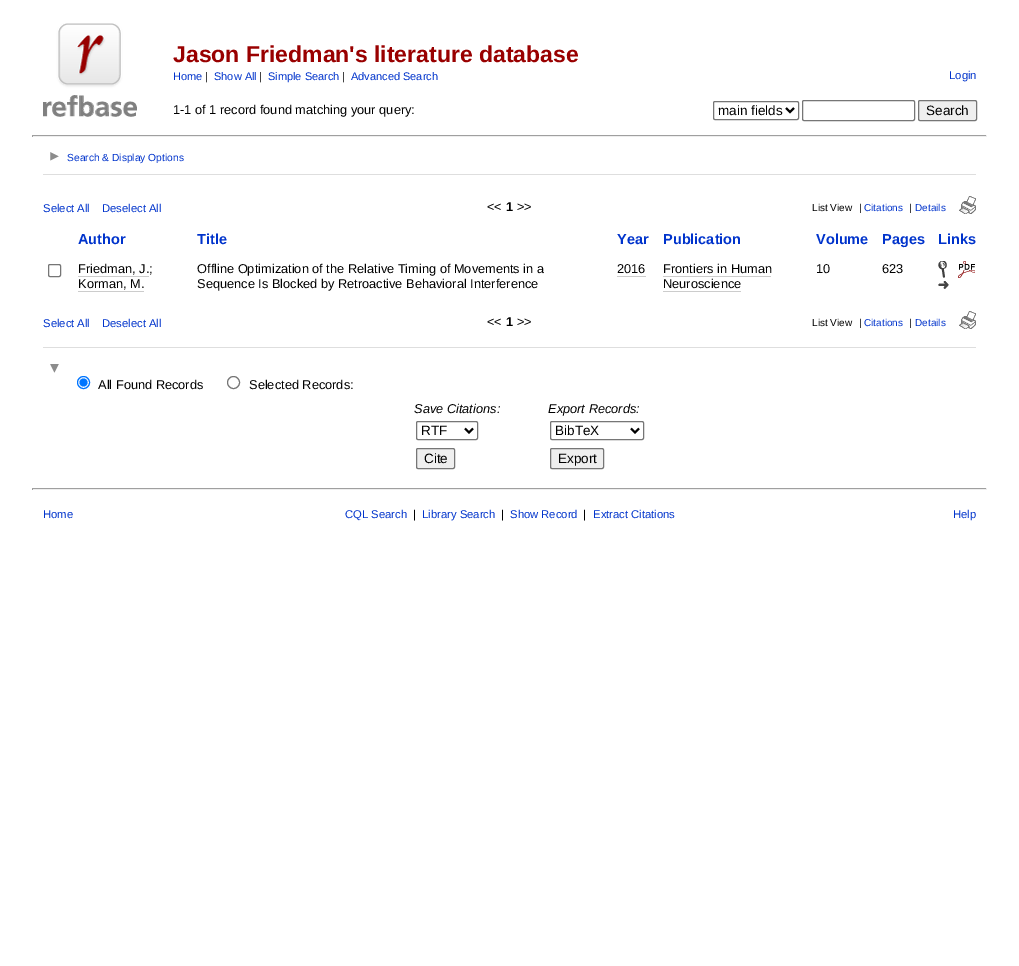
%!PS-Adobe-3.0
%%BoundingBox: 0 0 1019 966
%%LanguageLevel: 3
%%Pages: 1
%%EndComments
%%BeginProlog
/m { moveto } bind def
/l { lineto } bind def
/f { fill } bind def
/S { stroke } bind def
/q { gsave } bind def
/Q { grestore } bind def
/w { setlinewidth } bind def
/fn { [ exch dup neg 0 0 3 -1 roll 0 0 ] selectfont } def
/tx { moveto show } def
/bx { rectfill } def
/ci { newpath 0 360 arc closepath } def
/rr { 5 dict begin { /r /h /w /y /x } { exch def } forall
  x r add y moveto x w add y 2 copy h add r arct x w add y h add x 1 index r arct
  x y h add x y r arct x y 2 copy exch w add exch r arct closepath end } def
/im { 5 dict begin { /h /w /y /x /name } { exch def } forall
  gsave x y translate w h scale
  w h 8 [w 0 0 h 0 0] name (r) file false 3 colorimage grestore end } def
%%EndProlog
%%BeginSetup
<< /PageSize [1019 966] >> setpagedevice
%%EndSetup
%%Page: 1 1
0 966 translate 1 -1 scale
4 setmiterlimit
1 setgray
0 0 1019 966 bx
(image0.raw) 43 23 94 94 im
/LiberationSans-Bold 23 fn
0.6 0 0 setrgbcolor
(Jason Friedman's literature database) 173 62 tx
/LiberationSans-Regular 11 fn
0 0.2 0.8 setrgbcolor
(Home) 173 80 tx
0 setgray
(|) 205 80 tx
0 0.2 0.8 setrgbcolor
(Show All) 214 80 tx
0 setgray
(|) 259 80 tx
0 0.2 0.8 setrgbcolor
(Simple Search) 268 80 tx
0 setgray
(|) 342 80 tx
0 0.2 0.8 setrgbcolor
(Advanced Search) 351 80 tx
/LiberationSans-Regular 11.25 fn
(Login) 949 79 tx
0.463 setgray
713.5 101.5 85 18 1.5 rr S
0 setgray
2 w
786 108 m 790 112 l 794 108 l S
/LiberationSans-Regular 13.5 fn
(main fields) 718 115 tx
0.463 setgray
1 w
802.5 100.5 112 20 1.5 rr S
0.937 setgray
918.5 100.5 58 20 1.5 rr q f Q
0.463 setgray
S
0 setgray
(Search) 926 115 tx
/LiberationSans-Regular 12.8 fn
(1-1 of 1 record found matching your query:) 173 114 tx
0.624 setgray
32 135 955 1 bx
0.933 setgray
986 135 1 2 bx
32 136 955 1 bx
0.624 setgray
32 135 1 2 bx
(image1.raw) 50 152 9 9 im
/LiberationSans-Regular 10.25 fn
0 0.2 0.8 setrgbcolor
(Search & Display Options) 67 161 tx
0.871 setgray
43 174 933 1 bx
/LiberationSans-Regular 11.25 fn
0 0.2 0.8 setrgbcolor
(Select All) 43 212 tx
(Deselect All) 102 212 tx
/LiberationSans-Regular 12.8 fn
0 setgray
(<<) 487 211 tx
/LiberationSans-Bold 12.8 fn
(1) 506 211 tx
/LiberationSans-Regular 12.8 fn
(>>) 517 211 tx
/LiberationSans-Regular 10 fn
(List View) 812 211 tx
(|) 859 211 tx
0 0.2 0.8 setrgbcolor
(Citations) 864 211 tx
0 setgray
(|) 909 211 tx
0 0.2 0.8 setrgbcolor
(Details) 915 211 tx
(image2.raw) 959 196 17 18 im
/LiberationSans-Bold 14.5 fn
(Author) 78 244 tx
(Title) 197 244 tx
(Year) 617 244 tx
(Publication) 663 244 tx
(Volume) 816 244 tx
(Pages) 882 244 tx
(Links) 938 244 tx
0.463 setgray
48.5 264.5 12 12 1.5 rr S
/LiberationSans-Regular 12.8 fn
0 setgray
(Friedman, J.;) 78 273 tx
0.8 setgray
78 276 71 1 bx
0 setgray
(Korman, M.) 78 288 tx
0.8 setgray
78 291 66 1 bx
0 setgray
(Offline Optimization of the Relative Timing of Movements in a) 197 273 tx
(Sequence Is Blocked by Retroactive Behavioral Interference) 197 288 tx
(2016) 617 273 tx
0.8 setgray
617 276 29 1 bx
0 setgray
(Frontiers in Human) 663 273 tx
(Neuroscience) 663 288 tx
0.8 setgray
663 276 108 1 bx
663 291 78 1 bx
0 setgray
(10) 816 273 tx
(623) 882 273 tx
(image3.raw) 938 261 9 17 im
(image4.raw) 958 261 17 17 im
(image5.raw) 938 281 11 8 im
/LiberationSans-Regular 11.25 fn
0 0.2 0.8 setrgbcolor
(Select All) 43 327 tx
(Deselect All) 102 327 tx
/LiberationSans-Regular 12.8 fn
0 setgray
(<<) 487 326 tx
/LiberationSans-Bold 12.8 fn
(1) 506 326 tx
/LiberationSans-Regular 12.8 fn
(>>) 517 326 tx
/LiberationSans-Regular 10 fn
(List View) 812 326 tx
(|) 859 326 tx
0 0.2 0.8 setrgbcolor
(Citations) 864 326 tx
0 setgray
(|) 909 326 tx
0 0.2 0.8 setrgbcolor
(Details) 915 326 tx
(image2.raw) 959 311 17 18 im
0.871 setgray
43 347 933 1 bx
(image6.raw) 50 364 9 9 im
0 0.459 1 setrgbcolor
83.5 382.5 6 ci S
83.5 382.5 4 ci f
/LiberationSans-Regular 12.8 fn
0 setgray
(All Found Records) 98 389 tx
0.463 setgray
233.5 382.5 6 ci S
0 setgray
(Selected Records:) 249 389 tx
/LiberationSans-Italic 12.8 fn
(Save Citations:) 414 413 tx
0.463 setgray
416.5 421.5 61 18 1.5 rr S
0 setgray
2 w
465 428.5 m 469 432.5 l 473 428.5 l S
/LiberationSans-Regular 13.5 fn
(RTF) 421 435 tx
0.937 setgray
416.5 448.5 38 20 1.5 rr q f Q
0.463 setgray
1 w
S
0 setgray
(Cite) 424 463 tx
/LiberationSans-Italic 12.8 fn
(Export Records:) 548 413 tx
0.463 setgray
550.5 421.5 93 18 1.5 rr S
0 setgray
2 w
631 428.5 m 635 432.5 l 639 428.5 l S
/LiberationSans-Regular 13.5 fn
(BibTeX) 555 435 tx
0.937 setgray
550.5 448.5 53 20 1.5 rr q f Q
0.463 setgray
1 w
S
0 setgray
(Export) 558 463 tx
0.624 setgray
32 488 955 1 bx
0.933 setgray
986 488 1 2 bx
32 489 955 1 bx
0.624 setgray
32 488 1 2 bx
/LiberationSans-Regular 11.25 fn
0 0.2 0.8 setrgbcolor
(Home) 43 518 tx
(CQL Search) 345 518 tx
0 setgray
(|) 413 518 tx
0 0.2 0.8 setrgbcolor
(Library Search) 422 518 tx
0 setgray
(|) 501 518 tx
0 0.2 0.8 setrgbcolor
(Show Record) 510 518 tx
0 setgray
(|) 583 518 tx
0 0.2 0.8 setrgbcolor
(Extract Citations) 593 518 tx
(Help) 953 518 tx
showpage
%%EOF
